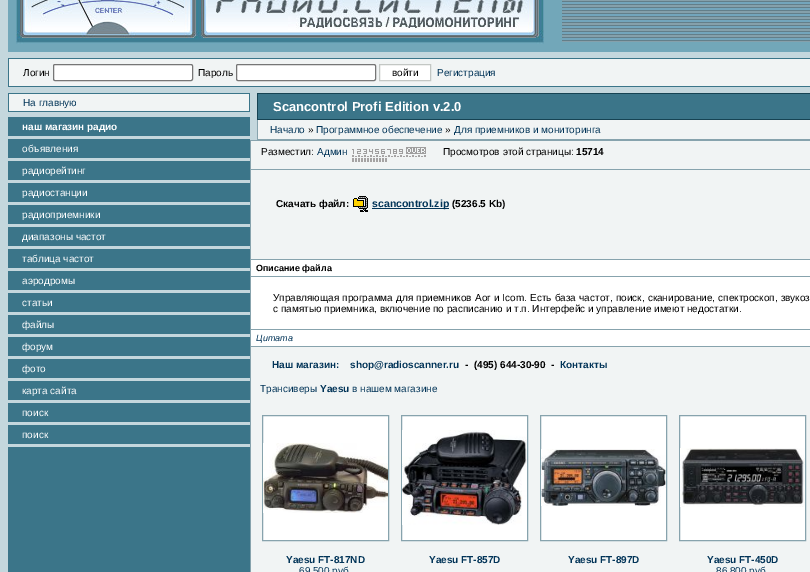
%!PS-Adobe-3.0
%%BoundingBox: 0 0 810 572
%%LanguageLevel: 3
%%Pages: 1
%%EndComments
%%BeginProlog
/m { moveto } bind def
/l { lineto } bind def
/h { closepath } bind def
/f { fill } bind def
/S { stroke } bind def
/q { gsave } bind def
/Q { grestore } bind def
/fn { [ exch dup neg 0 0 3 -1 roll 0 0 ] selectfont } def
/tx { moveto show } def
/bx { rectfill } def
/rr { 5 dict begin { /r /h /w /y /x } { exch def } forall
  x r add y moveto x w add y 2 copy h add r arct x w add y h add x 1 index r arct
  x y h add x y r arct x y 2 copy exch w add exch r arct closepath end } def
/im { 5 dict begin { /h /w /y /x /name } { exch def } forall
  gsave x y translate w h scale
  w h 8 [w 0 0 h 0 0] name (r) file false 3 colorimage grestore end } def
%%EndProlog
%%BeginSetup
<< /PageSize [810 572] >> setpagedevice
%%EndSetup
%%Page: 1 1
0 572 translate 1 -1 scale
4 setmiterlimit
0.769 0.843 0.867 setrgbcolor
0 0 810 572 bx
0.447 0.655 0.725 setrgbcolor
8 0 554 52 bx
(image0.raw) 16 0 528 44 im
562 42 248 10 bx
(image1.raw) 562 0 248 42 im
0.231 0.459 0.537 setrgbcolor
8 58 802 1 bx
8 86 802 1 bx
8 58 1 29 bx
0.945 0.957 0.957 setrgbcolor
9 59 801 27 bx
/LiberationSans-Regular 10 fn
0 setgray
(Логин) 23 76 tx
1 setgray
53.5 64.5 139 16 1.5 rr q f Q
0.463 setgray
S
0 setgray
(Пароль) 198 76 tx
1 setgray
236.5 64.5 139 16 1.5 rr q f Q
0.463 setgray
S
1 setgray
379.5 64.5 m 430.5 64.5 l 430.5 80.5 l 379.5 80.5 l h q f Q
0.765 0.78 0.769 setrgbcolor
S
0 setgray
(войти) 392 76 tx
0.008 0.204 0.345 setrgbcolor
(Регистрация) 437 76 tx
0.231 0.459 0.537 setrgbcolor
8 93 242 479 bx
0.945 0.957 0.957 setrgbcolor
9 94 240 17 bx
0.008 0.204 0.345 setrgbcolor
(На главную) 23 106 tx
0.769 0.843 0.867 setrgbcolor
8 112 242 2 bx
7 114 245 3 bx
/LiberationSans-Bold 10 fn
1 setgray
(наш магазин радио) 22 130 tx
0.769 0.843 0.867 setrgbcolor
7 136 245 3 bx
/LiberationSans-Regular 10 fn
1 setgray
(объявления) 22 152 tx
0.769 0.843 0.867 setrgbcolor
7 158 245 3 bx
1 setgray
(радиорейтинг) 22 174 tx
0.769 0.843 0.867 setrgbcolor
7 180 245 3 bx
1 setgray
(радиостанции) 22 196 tx
0.769 0.843 0.867 setrgbcolor
7 202 245 3 bx
1 setgray
(радиоприемники) 22 218 tx
0.769 0.843 0.867 setrgbcolor
7 224 245 3 bx
1 setgray
(диапазоны частот) 22 240 tx
0.769 0.843 0.867 setrgbcolor
7 246 245 3 bx
1 setgray
(таблица частот) 22 262 tx
0.769 0.843 0.867 setrgbcolor
7 268 245 3 bx
1 setgray
(аэродромы) 22 284 tx
0.769 0.843 0.867 setrgbcolor
7 290 245 3 bx
1 setgray
(статьи) 22 306 tx
0.769 0.843 0.867 setrgbcolor
7 312 245 3 bx
1 setgray
(файлы) 22 328 tx
0.769 0.843 0.867 setrgbcolor
7 334 245 3 bx
1 setgray
(форум) 22 350 tx
0.769 0.843 0.867 setrgbcolor
7 356 245 3 bx
1 setgray
(фото) 22 372 tx
0.769 0.843 0.867 setrgbcolor
7 378 245 3 bx
1 setgray
(карта сайта) 22 394 tx
0.769 0.843 0.867 setrgbcolor
7 400 245 3 bx
1 setgray
(поиск) 22 416 tx
0.769 0.843 0.867 setrgbcolor
7 422 245 3 bx
7 444 245 3 bx
1 setgray
(поиск) 22 438 tx
0.231 0.459 0.537 setrgbcolor
258 94 552 25 bx
0.086 0.263 0.325 setrgbcolor
257 93 553 1 bx
0.529 0.639 0.678 setrgbcolor
257 139 553 1 bx
257 119 1 21 bx
0.086 0.263 0.325 setrgbcolor
257 119 553 1 bx
257 93 1 27 bx
/LiberationSans-Bold 13 fn
1 setgray
(Scancontrol Profi Edition v.2.0) 273 111 tx
0.945 0.957 0.957 setrgbcolor
258 120 552 19 bx
/LiberationSans-Regular 10 fn
0.008 0.204 0.345 setrgbcolor
(Начало) 270 133 tx
0 setgray
(») 308 133 tx
0.008 0.204 0.345 setrgbcolor
(Программное обеспечение) 316 133 tx
0 setgray
(») 445 133 tx
0.008 0.204 0.345 setrgbcolor
(Для приемников и мониторинга) 454 133 tx
0.945 0.957 0.957 setrgbcolor
251 141 559 28 bx
0.529 0.639 0.678 setrgbcolor
250 140 560 1 bx
250 169 560 1 bx
250 259 560 1 bx
250 276 560 1 bx
250 329 560 1 bx
250 346 560 1 bx
250 346 1 226 bx
250 329 1 18 bx
250 276 1 54 bx
250 259 1 18 bx
250 169 1 91 bx
250 140 1 30 bx
0 setgray
(Разместил:) 261 155 tx
0.008 0.204 0.345 setrgbcolor
(Админ) 317 155 tx
(image2.raw) 352 147 74 15 im
0 setgray
(Просмотров этой страницы:) 443 155 tx
/LiberationSans-Bold 10 fn
(15714) 576 155 tx
0.945 0.957 0.957 setrgbcolor
251 170 559 89 bx
0 setgray
(Скачать файл:) 276 207 tx
(image3.raw) 353 196 15 16 im
0.008 0.204 0.345 setrgbcolor
372 208 77 1 bx
/LiberationSans-Bold 10.5 fn
(scancontrol.zip) 372 207 tx
/LiberationSans-Bold 10 fn
0 setgray
(\(5236.5 Kb\)) 452 207 tx
1 setgray
251 260 559 16 bx
/LiberationSans-Bold 9 fn
0 setgray
(Описание файла) 256 271 tx
1 setgray
251 277 559 52 bx
/LiberationSans-Regular 10 fn
0 setgray
273 301 m 0.4 0 32 (Управляющая программа для приемников Aor и Icom. Есть база частот, поиск, сканирование, спектроскоп, звукоз) widthshow
(с памятью приемника, включение по расписанию и т.п. Интерфейс и управление имеют недостатки.) 273 312 tx
1 setgray
251 330 559 16 bx
/LiberationSans-Italic 9 fn
0.008 0.204 0.345 setrgbcolor
(Цитата) 256 341 tx
0.945 0.957 0.957 setrgbcolor
251 347 559 225 bx
/LiberationSans-Bold 10 fn
0.008 0.204 0.345 setrgbcolor
(Наш магазин:) 272 368 tx
(shop@radioscanner.ru) 350 368 tx
0 setgray
(-  \(495\) 644-30-90  -) 465 368 tx
0.008 0.204 0.345 setrgbcolor
(Контакты) 560 368 tx
/LiberationSans-Regular 10 fn
(Трансиверы) 260 392 tx
/LiberationSans-Bold 10 fn
(Yaesu) 320 392 tx
/LiberationSans-Regular 10 fn
(в нашем магазине) 352 392 tx
1 setgray
262.5 415.5 m 388.5 415.5 l 388.5 540.5 l 262.5 540.5 l h q f Q
0.529 0.639 0.678 setrgbcolor
S
(image4.raw) 263 443 125 70 im
/LiberationSans-Bold 10 fn
0.008 0.204 0.345 setrgbcolor
(Yaesu FT-817ND) 286 563 tx
/LiberationSans-Regular 10 fn
(69 500 руб) 299 574 tx
1 setgray
401.5 415.5 m 527.5 415.5 l 527.5 540.5 l 401.5 540.5 l h q f Q
0.529 0.639 0.678 setrgbcolor
S
(image5.raw) 402 430 125 95 im
/LiberationSans-Bold 10 fn
0.008 0.204 0.345 setrgbcolor
(Yaesu FT-857D) 429 563 tx
1 setgray
540.5 415.5 m 666.5 415.5 l 666.5 540.5 l 540.5 540.5 l h q f Q
0.529 0.639 0.678 setrgbcolor
S
(image6.raw) 541 449 125 57 im
0.008 0.204 0.345 setrgbcolor
(Yaesu FT-897D) 568 563 tx
1 setgray
679.5 415.5 m 805.5 415.5 l 805.5 540.5 l 679.5 540.5 l h q f Q
0.529 0.639 0.678 setrgbcolor
S
(image7.raw) 680 448 125 59 im
0.008 0.204 0.345 setrgbcolor
(Yaesu FT-450D) 707 563 tx
/LiberationSans-Regular 10 fn
(86 800 руб) 716 574 tx
showpage
%%EOF
